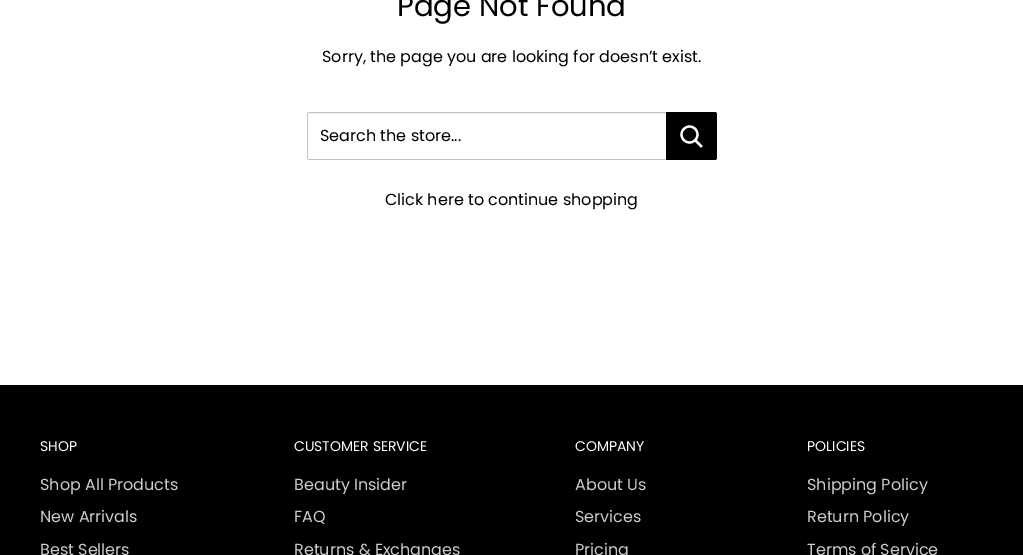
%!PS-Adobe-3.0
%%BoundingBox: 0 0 1023 555
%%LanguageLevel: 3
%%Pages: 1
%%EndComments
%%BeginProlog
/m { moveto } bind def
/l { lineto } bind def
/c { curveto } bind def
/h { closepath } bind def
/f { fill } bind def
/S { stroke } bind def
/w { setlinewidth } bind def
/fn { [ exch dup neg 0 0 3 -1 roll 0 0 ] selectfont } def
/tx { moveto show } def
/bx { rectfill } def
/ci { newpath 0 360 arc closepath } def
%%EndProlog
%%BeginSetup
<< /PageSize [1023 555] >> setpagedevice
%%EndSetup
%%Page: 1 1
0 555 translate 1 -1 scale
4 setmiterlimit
1 setgray
0 0 1023 555 bx
/Poppins-Regular 29 fn
0 setgray
(Page Not Found) 397 16 tx
/Poppins-Regular 16 fn
(Sorry, the page you are looking for doesn’t exist.) 322 62 tx
0.949 setgray
309 114 m 666 114 l 666 113 l 309 113 l 308 113 308 114 308 115 c 308 114 308 114 309 114 c h f
0.749 setgray
308 112 358 1 bx
308 159 358 1 bx
307 113 1 46 bx
0 setgray
(Search the store...) 320 141 tx
666 112 m 715 112 l 716 112 717 113 717 114 c 717 158 l 717 159 716 160 715 160 c 666 160 l h f
1 setgray
2.2 w
2 setlinecap
701 146 m 695.5 140.5 l S
0 setlinecap
689.5 134.5 8 ci S
0 setgray
(Click here to continue shopping) 385 205 tx
0 385 1023 170 bx
/Poppins-Regular 14 fn
1 setgray
(SHOP) 40 451 tx
/Poppins-Regular 16 fn
0.8 setgray
(Shop All Products) 40 490 tx
(New Arrivals) 40 522 tx
(Best Sellers) 40 555 tx
/Poppins-Regular 14 fn
1 setgray
(CUSTOMER SERVICE) 294 451 tx
/Poppins-Regular 16 fn
0.8 setgray
(Beauty Insider) 294 490 tx
(FAQ) 294 522 tx
(Returns & Exchanges) 294 555 tx
/Poppins-Regular 14 fn
1 setgray
(COMPANY) 575 451 tx
/Poppins-Regular 16 fn
0.8 setgray
(About Us) 575 490 tx
(Services) 575 522 tx
(Pricing) 575 555 tx
/Poppins-Regular 14 fn
1 setgray
(POLICIES) 807 451 tx
/Poppins-Regular 16 fn
0.8 setgray
(Shipping Policy) 807 490 tx
(Return Policy) 807 522 tx
(Terms of Service) 807 555 tx
showpage
%%EOF
